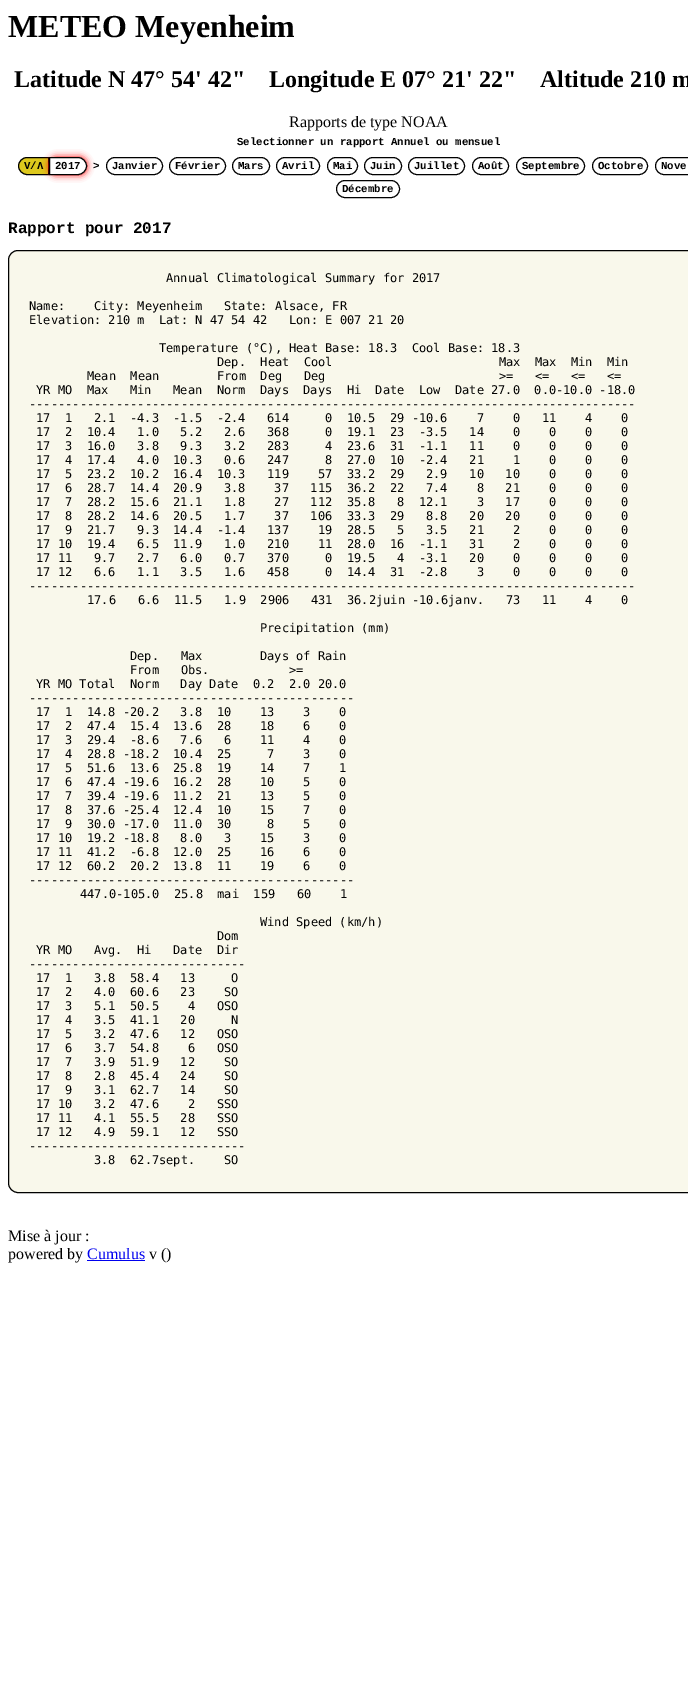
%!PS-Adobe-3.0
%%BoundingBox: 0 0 688 1700
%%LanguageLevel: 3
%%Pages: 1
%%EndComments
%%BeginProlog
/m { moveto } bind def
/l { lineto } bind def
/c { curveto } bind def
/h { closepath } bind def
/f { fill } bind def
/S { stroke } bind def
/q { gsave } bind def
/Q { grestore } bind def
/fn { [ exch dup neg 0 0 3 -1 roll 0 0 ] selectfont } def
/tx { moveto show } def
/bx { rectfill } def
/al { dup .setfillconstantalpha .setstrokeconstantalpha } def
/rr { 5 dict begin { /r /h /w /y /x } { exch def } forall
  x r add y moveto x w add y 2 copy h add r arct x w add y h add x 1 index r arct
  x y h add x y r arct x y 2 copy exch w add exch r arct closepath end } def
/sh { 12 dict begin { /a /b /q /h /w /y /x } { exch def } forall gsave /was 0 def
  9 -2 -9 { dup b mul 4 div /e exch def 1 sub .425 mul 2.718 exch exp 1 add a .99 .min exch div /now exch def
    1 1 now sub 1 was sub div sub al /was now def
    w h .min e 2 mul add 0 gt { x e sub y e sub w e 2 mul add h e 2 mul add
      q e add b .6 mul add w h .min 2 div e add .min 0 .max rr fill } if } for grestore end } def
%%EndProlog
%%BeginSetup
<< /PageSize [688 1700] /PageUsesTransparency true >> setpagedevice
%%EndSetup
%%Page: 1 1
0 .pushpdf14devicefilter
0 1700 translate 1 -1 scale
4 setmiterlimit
1 setgray
0 0 688 1700 bx
/LiberationSerif-Bold 32 fn
0 setgray
(METEO Meyenheim) 8 37 tx
/LiberationSerif-Bold 24 fn
(Latitude N 47° 54' 42"    Longitude E 07° 21' 22"    Altitude 210 m) 14 87 tx
/LiberationSerif-Regular 16 fn
(Rapports de type NOAA) 289 127 tx
/LiberationMono-Bold 10.7 fn
(Selectionner un rapport Annuel ou mensuel) 237 145 tx
0.867 0.784 0.114 setrgbcolor
27 157.5 m 48.5 157.5 l 48.5 174.5 l 27 174.5 l 22.5 174.5 18.5 170.5 18.5 166 c 18.5 161.5 22.5 157.5 27 157.5 c h q f Q
0 setgray
S
(V/Λ) 24 169 tx
1 0 0 setrgbcolor
49 157 38 18 9 3.5 1 sh
1 setgray
49.5 157.5 m 78 157.5 l 82.5 157.5 86.5 161.5 86.5 166 c 86.5 170.5 82.5 174.5 78 174.5 c 49.5 174.5 l h q f Q
0 setgray
S
(2017) 55 169 tx
(>) 93 169 tx
106.5 157.5 56 17 8.5 rr S
(Janvier) 112 169 tx
169.5 157.5 56 17 8.5 rr S
(Février) 175 169 tx
232.5 157.5 37 17 8.5 rr S
(Mars) 238 169 tx
276.5 157.5 43 17 8.5 rr S
(Avril) 282 169 tx
327.5 157.5 30 17 8.5 rr S
(Mai) 333 169 tx
364.5 157.5 37 17 8.5 rr S
(Juin) 370 169 tx
408.5 157.5 56 17 8.5 rr S
(Juillet) 414 169 tx
472.5 157.5 36 17 8.5 rr S
(Août) 478 169 tx
516.5 157.5 68 17 8.5 rr S
(Septembre) 522 169 tx
592.5 157.5 55 17 8.5 rr S
(Octobre) 598 169 tx
655.5 157.5 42 17 8.5 rr S
(Nove) 661 169 tx
336.5 180.5 63 17 8.5 rr S
(Décembre) 342 192 tx
/LiberationMono-Bold 16 fn
(Rapport pour 2017) 8 233 tx
0.976 0.973 0.922 setrgbcolor
8.5 250.5 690 942 9.5 rr q f Q
0 setgray
S
/DejaVuSansMono-Regular 12 fn
(Annual Climatological Summary for 2017) 166 282 tx
(Name:    City: Meyenheim   State: Alsace, FR) 29 310 tx
(Elevation: 210 m  Lat: N 47 54 42   Lon: E 007 21 20) 29 324 tx
(Temperature \(°C\), Heat Base: 18.3  Cool Base: 18.3) 159 352 tx
(Dep.  Heat  Cool                       Max  Max  Min  Min) 217 366 tx
(Mean  Mean        From  Deg   Deg                        >=   <=   <=   <=) 87 380 tx
(YR MO  Max   Min   Mean  Norm  Days  Days  Hi  Date  Low  Date 27.0  0.0-10.0 -18.0) 36 394 tx
(------------------------------------------------------------------------------------) 29 408 tx
(17  1   2.1  -4.3  -1.5  -2.4   614     0  10.5  29 -10.6    7    0   11    4    0) 36 422 tx
(17  2  10.4   1.0   5.2   2.6   368     0  19.1  23  -3.5   14    0    0    0    0) 36 436 tx
(17  3  16.0   3.8   9.3   3.2   283     4  23.6  31  -1.1   11    0    0    0    0) 36 450 tx
(17  4  17.4   4.0  10.3   0.6   247     8  27.0  10  -2.4   21    1    0    0    0) 36 464 tx
(17  5  23.2  10.2  16.4  10.3   119    57  33.2  29   2.9   10   10    0    0    0) 36 478 tx
(17  6  28.7  14.4  20.9   3.8    37   115  36.2  22   7.4    8   21    0    0    0) 36 492 tx
(17  7  28.2  15.6  21.1   1.8    27   112  35.8   8  12.1    3   17    0    0    0) 36 506 tx
(17  8  28.2  14.6  20.5   1.7    37   106  33.3  29   8.8   20   20    0    0    0) 36 520 tx
(17  9  21.7   9.3  14.4  -1.4   137    19  28.5   5   3.5   21    2    0    0    0) 36 534 tx
(17 10  19.4   6.5  11.9   1.0   210    11  28.0  16  -1.1   31    2    0    0    0) 36 548 tx
(17 11   9.7   2.7   6.0   0.7   370     0  19.5   4  -3.1   20    0    0    0    0) 36 562 tx
(17 12   6.6   1.1   3.5   1.6   458     0  14.4  31  -2.8    3    0    0    0    0) 36 576 tx
(------------------------------------------------------------------------------------) 29 590 tx
(17.6   6.6  11.5   1.9  2906   431  36.2juin -10.6janv.   73   11    4    0) 87 604 tx
(Precipitation \(mm\)) 260 632 tx
(Dep.   Max        Days of Rain) 130 660 tx
(From   Obs.           >=) 130 674 tx
(YR MO Total  Norm   Day Date  0.2  2.0 20.0) 36 688 tx
(---------------------------------------------) 29 702 tx
(17  1  14.8 -20.2   3.8  10    13    3    0) 36 716 tx
(17  2  47.4  15.4  13.6  28    18    6    0) 36 730 tx
(17  3  29.4  -8.6   7.6   6    11    4    0) 36 744 tx
(17  4  28.8 -18.2  10.4  25     7    3    0) 36 758 tx
(17  5  51.6  13.6  25.8  19    14    7    1) 36 772 tx
(17  6  47.4 -19.6  16.2  28    10    5    0) 36 786 tx
(17  7  39.4 -19.6  11.2  21    13    5    0) 36 800 tx
(17  8  37.6 -25.4  12.4  10    15    7    0) 36 814 tx
(17  9  30.0 -17.0  11.0  30     8    5    0) 36 828 tx
(17 10  19.2 -18.8   8.0   3    15    3    0) 36 842 tx
(17 11  41.2  -6.8  12.0  25    16    6    0) 36 856 tx
(17 12  60.2  20.2  13.8  11    19    6    0) 36 870 tx
(---------------------------------------------) 29 884 tx
(447.0-105.0  25.8  mai  159   60    1) 80 898 tx
(Wind Speed \(km/h\)) 260 926 tx
(Dom) 217 940 tx
(YR MO   Avg.  Hi   Date  Dir) 36 954 tx
(------------------------------) 29 968 tx
(17  1   3.8  58.4   13     O) 36 982 tx
(17  2   4.0  60.6   23    SO) 36 996 tx
(17  3   5.1  50.5    4   OSO) 36 1010 tx
(17  4   3.5  41.1   20     N) 36 1024 tx
(17  5   3.2  47.6   12   OSO) 36 1038 tx
(17  6   3.7  54.8    6   OSO) 36 1052 tx
(17  7   3.9  51.9   12    SO) 36 1066 tx
(17  8   2.8  45.4   24    SO) 36 1080 tx
(17  9   3.1  62.7   14    SO) 36 1094 tx
(17 10   3.2  47.6    2   SSO) 36 1108 tx
(17 11   4.1  55.5   28   SSO) 36 1122 tx
(17 12   4.9  59.1   12   SSO) 36 1136 tx
(------------------------------) 29 1150 tx
(3.8  62.7sept.    SO) 94 1164 tx
/LiberationSerif-Regular 16 fn
(Mise à jour :) 8 1241 tx
(powered by) 8 1259 tx
0 0 0.933 setrgbcolor
(Cumulus) 87 1259 tx
87 1260 58 1 bx
0 setgray
(v \(\)) 149 1259 tx
.poppdf14devicefilter showpage
%%EOF
